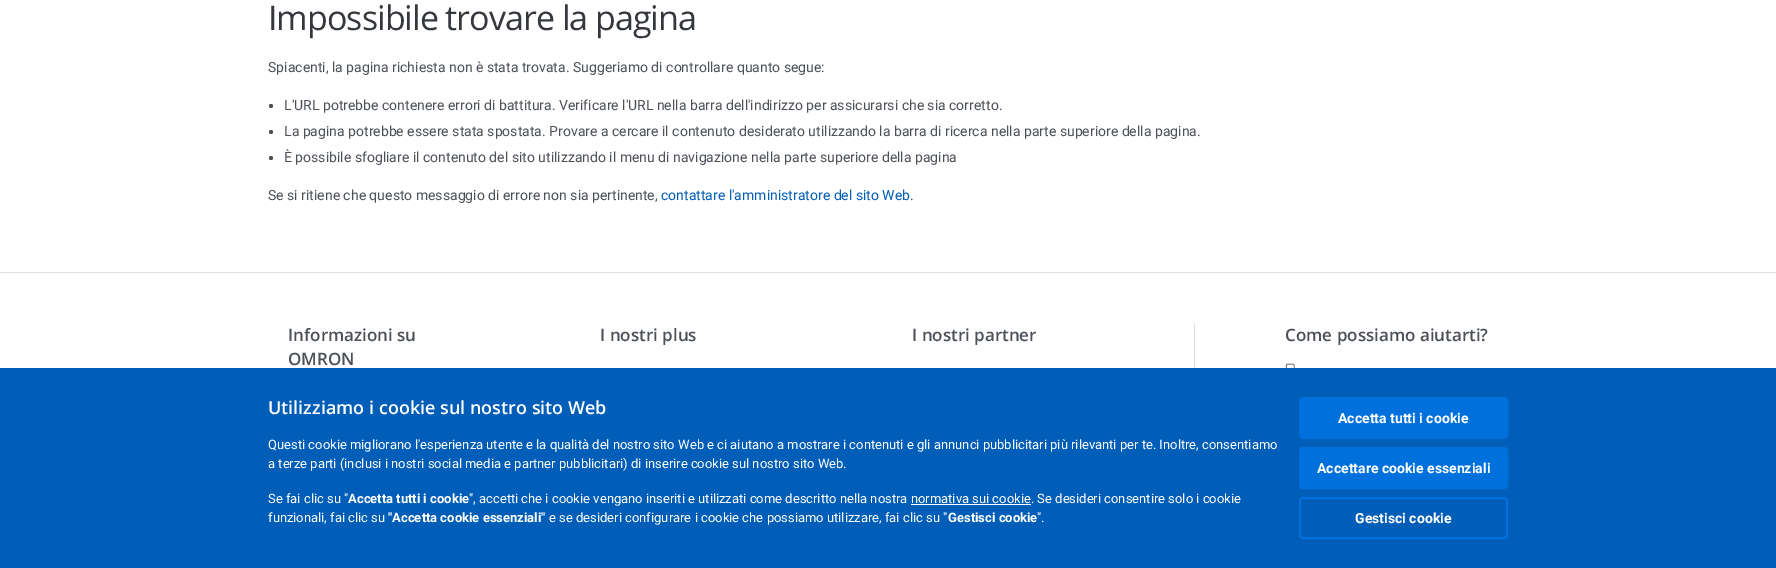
%!PS-Adobe-3.0
%%BoundingBox: 0 0 1776 568
%%LanguageLevel: 3
%%Pages: 1
%%EndComments
%%BeginProlog
/m { moveto } bind def
/f { fill } bind def
/S { stroke } bind def
/q { gsave } bind def
/Q { grestore } bind def
/w { setlinewidth } bind def
/fn { [ exch dup neg 0 0 3 -1 roll 0 0 ] selectfont } def
/tx { moveto show } def
/bx { rectfill } def
/ci { newpath 0 360 arc closepath } def
/rr { 5 dict begin { /r /h /w /y /x } { exch def } forall
  x r add y moveto x w add y 2 copy h add r arct x w add y h add x 1 index r arct
  x y h add x y r arct x y 2 copy exch w add exch r arct closepath end } def
/im { 5 dict begin { /h /w /y /x /name } { exch def } forall
  gsave x y translate w h scale
  w h 8 [w 0 0 h 0 0] name (r) file false 3 colorimage grestore end } def
%%EndProlog
%%BeginSetup
<< /PageSize [1776 568] >> setpagedevice
%%EndSetup
%%Page: 1 1
0 568 translate 1 -1 scale
4 setmiterlimit
1 setgray
0 0 1776 568 bx
/OpenSans-Regular 34 fn
0.204 0.22 0.235 setrgbcolor
268 30 m -1 0 (Impossibile trovare la pagina) ashow
/Roboto-Regular 14 fn
0.298 0.318 0.341 setrgbcolor
(Spiacenti, la pagina richiesta non è stata trovata. Suggeriamo di controllare quanto segue:) 268 72 tx
271 106 2 ci f
(L'URL potrebbe contenere errori di battitura. Verificare l'URL nella barra dell'indirizzo per assicurarsi che sia corretto.) 284 110 tx
271 132 2 ci f
(La pagina potrebbe essere stata spostata. Provare a cercare il contenuto desiderato utilizzando la barra di ricerca nella parte superiore della pagina.) 284 136 tx
271 158 2 ci f
(È possibile sfogliare il contenuto del sito utilizzando il menu di navigazione nella parte superiore della pagina) 284 162 tx
(Se si ritiene che questo messaggio di errore non sia pertinente,) 268 200 tx
0 0.369 0.722 setrgbcolor
(contattare l'amministratore del sito Web) 661 200 tx
0.298 0.318 0.341 setrgbcolor
(.) 910 200 tx
0.875 setgray
0 272 1776 1 bx
/OpenSans-SemiBold 17 fn
0.298 0.318 0.341 setrgbcolor
(Informazioni su) 288 341 tx
(OMRON) 288 365 tx
(I nostri plus) 600 341 tx
(I nostri partner) 912 341 tx
0.875 setgray
1194 323 1 45 bx
0.298 0.318 0.341 setrgbcolor
(Come possiamo aiutarti?) 1285 341 tx
(image0.raw) 1285 363 10 5 im
0 0.369 0.722 setrgbcolor
0 368 1776 200 bx
/OpenSans-SemiBold 18 fn
1 setgray
(Utilizziamo i cookie sul nostro sito Web) 268 414 tx
/Roboto-Regular 13 fn
(Questi cookie migliorano l'esperienza utente e la qualità del nostro sito Web e ci aiutano a mostrare i contenuti e gli annunci pubblicitari più rilevanti per te. Inoltre, consentiamo) 268 449 tx
(a terze parti \(inclusi i nostri social media e partner pubblicitari\) di inserire cookie sul nostro sito Web.) 268 468 tx
(Se fai clic su ") 268 503 tx
/Roboto-Bold 13 fn
(Accetta tutti i cookie) 348 503 tx
/Roboto-Regular 13 fn
(", accetti che i cookie vengano inseriti e utilizzati come descritto nella nostra normativa sui cookie. Se desideri consentire solo i cookie) 469 503 tx
911 504 120 1 bx
(funzionali, fai clic su) 268 522 tx
/Roboto-Bold 13 fn
("Accetta cookie essenziali") 388 522 tx
/Roboto-Regular 13 fn
(e se desideri configurare i cookie che possiamo utilizzare, fai clic su ") 549 522 tx
/Roboto-Bold 13 fn
(Gestisci cookie) 948 522 tx
/Roboto-Regular 13 fn
(".) 1037 522 tx
0 0.439 0.863 setrgbcolor
1300 398 207 40 3 rr q f Q
2 w
S
/Roboto-Bold 14 fn
1 setgray
(Accetta tutti i cookie) 1338 423 tx
0 0.439 0.863 setrgbcolor
1300 448 207 40 3 rr q f Q
S
1 setgray
(Accettare cookie essenziali) 1317 473 tx
0 0.439 0.863 setrgbcolor
1300 498 207 40 3 rr S
1 setgray
(Gestisci cookie) 1355 523 tx
showpage
%%EOF
